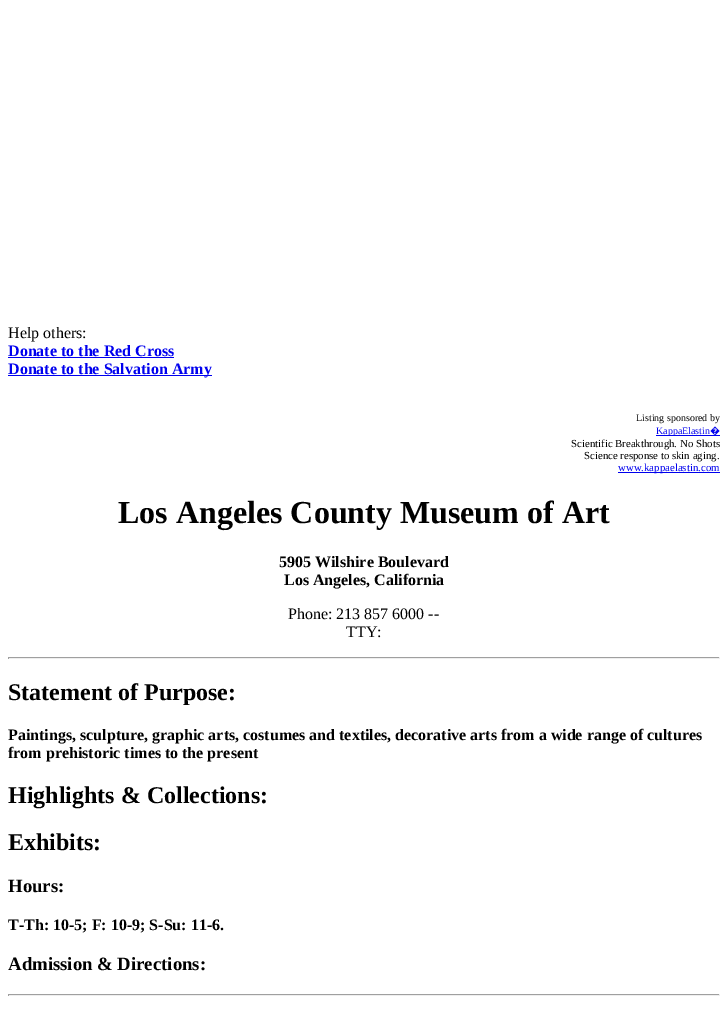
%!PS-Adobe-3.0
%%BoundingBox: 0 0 728 1031
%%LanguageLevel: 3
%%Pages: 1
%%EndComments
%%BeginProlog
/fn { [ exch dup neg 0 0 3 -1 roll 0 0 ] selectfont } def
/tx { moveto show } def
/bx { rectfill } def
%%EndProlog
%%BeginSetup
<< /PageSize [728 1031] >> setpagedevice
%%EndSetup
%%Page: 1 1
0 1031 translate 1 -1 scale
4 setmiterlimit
1 setgray
0 0 728 1031 bx
/LiberationSerif-Regular 16 fn
0 setgray
(Help others:) 8 338 tx
/LiberationSerif-Bold 16 fn
0 0 0.933 setrgbcolor
(Donate to the Red Cross) 8 356 tx
8 357 166 1 bx
8 375 204 1 bx
(Donate to the Salvation Army) 8 374 tx
/LiberationSerif-Regular 10 fn
0 setgray
(Listing sponsored by) 636 421 tx
0 0 0.933 setrgbcolor
656 435 64 1 bx
(KappaElastin) 656 434 tx
/NotoSans-Regular 10 fn
(�) 710 434 tx
/LiberationSerif-Regular 10.8 fn
0 setgray
(Scientific Breakthrough. No Shots) 571 447 tx
(Science response to skin aging.) 584 459 tx
0 0 0.933 setrgbcolor
618 472 102 1 bx
(www.kappaelastin.com) 618 471 tx
/LiberationSerif-Bold 32 fn
0 setgray
(Los Angeles County Museum of Art) 118 523 tx
/LiberationSerif-Bold 16 fn
(5905 Wilshire Boulevard) 279 567 tx
(Los Angeles, California) 284 585 tx
/LiberationSerif-Regular 16 fn
(Phone: 213 857 6000 --) 288 619 tx
(TTY:) 346 637 tx
0.624 setgray
8 657 712 1 bx
0.933 setgray
719 657 1 2 bx
8 658 712 1 bx
0.624 setgray
8 657 1 2 bx
/LiberationSerif-Bold 24 fn
0 setgray
(Statement of Purpose:) 8 700 tx
/LiberationSerif-Bold 16 fn
(Paintings, sculpture, graphic arts, costumes and textiles, decorative arts from a wide range of cultures) 8 740 tx
(from prehistoric times to the present) 8 758 tx
/LiberationSerif-Bold 24 fn
(Highlights & Collections:) 8 803 tx
(Exhibits:) 8 850 tx
/LiberationSerif-Bold 18.75 fn
(Hours:) 8 892 tx
/LiberationSerif-Bold 16 fn
(T-Th: 10-5; F: 10-9; S-Su: 11-6.) 8 930 tx
/LiberationSerif-Bold 18.75 fn
(Admission & Directions:) 8 970 tx
0.624 setgray
8 994 712 1 bx
0.933 setgray
719 994 1 2 bx
8 995 712 1 bx
0.624 setgray
8 994 1 2 bx
showpage
%%EOF
